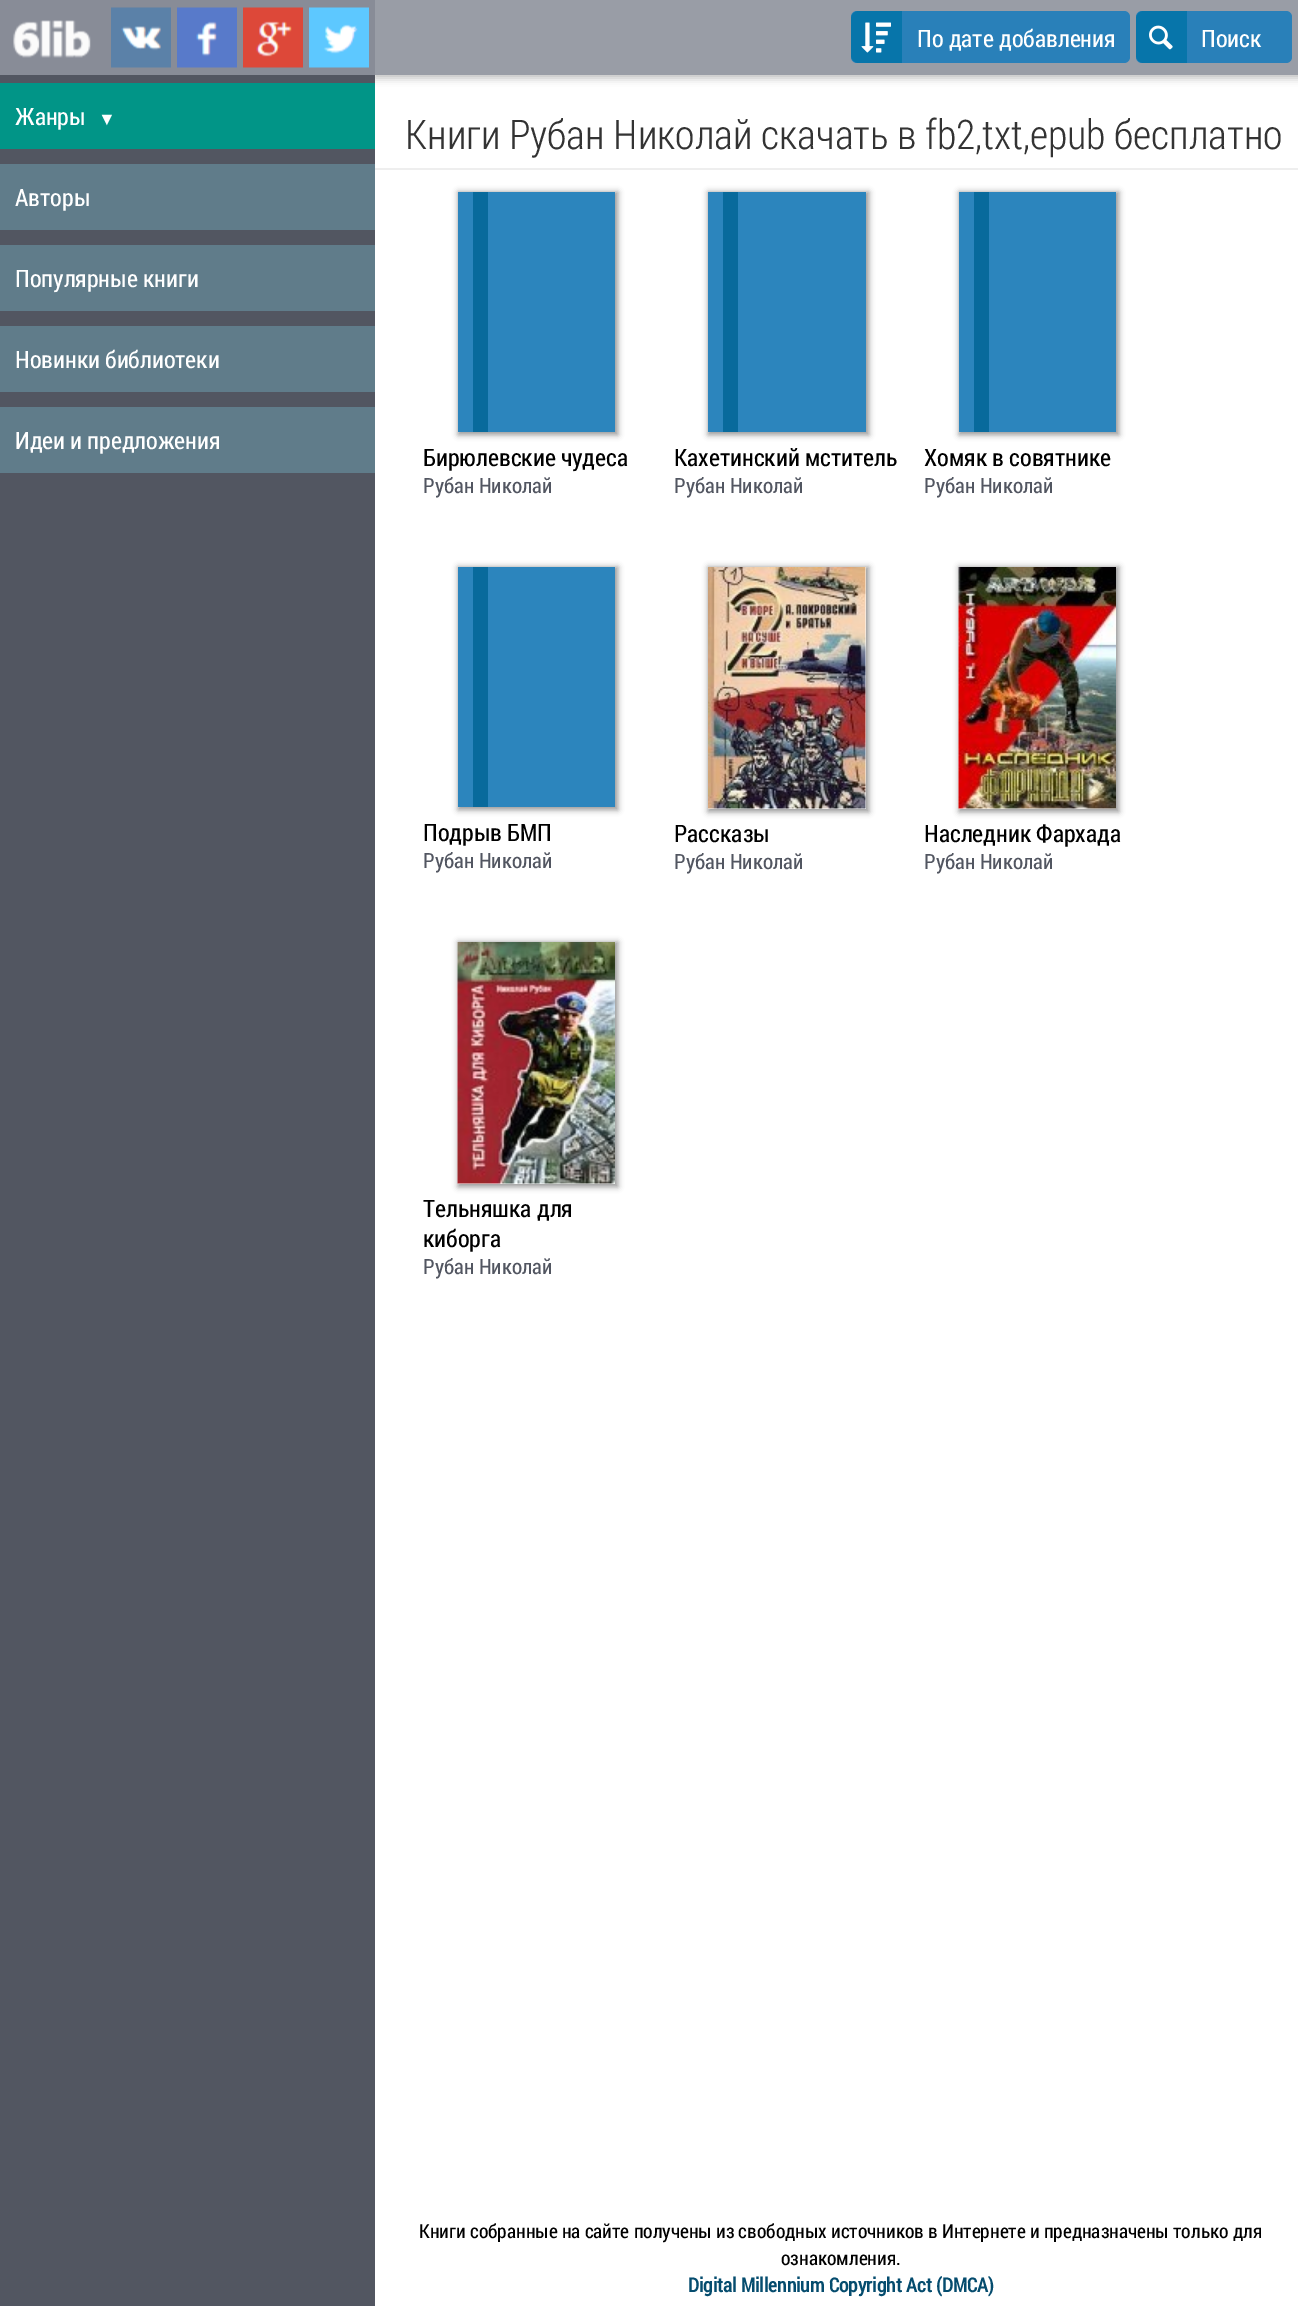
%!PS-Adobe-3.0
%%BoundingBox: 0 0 1298 2306
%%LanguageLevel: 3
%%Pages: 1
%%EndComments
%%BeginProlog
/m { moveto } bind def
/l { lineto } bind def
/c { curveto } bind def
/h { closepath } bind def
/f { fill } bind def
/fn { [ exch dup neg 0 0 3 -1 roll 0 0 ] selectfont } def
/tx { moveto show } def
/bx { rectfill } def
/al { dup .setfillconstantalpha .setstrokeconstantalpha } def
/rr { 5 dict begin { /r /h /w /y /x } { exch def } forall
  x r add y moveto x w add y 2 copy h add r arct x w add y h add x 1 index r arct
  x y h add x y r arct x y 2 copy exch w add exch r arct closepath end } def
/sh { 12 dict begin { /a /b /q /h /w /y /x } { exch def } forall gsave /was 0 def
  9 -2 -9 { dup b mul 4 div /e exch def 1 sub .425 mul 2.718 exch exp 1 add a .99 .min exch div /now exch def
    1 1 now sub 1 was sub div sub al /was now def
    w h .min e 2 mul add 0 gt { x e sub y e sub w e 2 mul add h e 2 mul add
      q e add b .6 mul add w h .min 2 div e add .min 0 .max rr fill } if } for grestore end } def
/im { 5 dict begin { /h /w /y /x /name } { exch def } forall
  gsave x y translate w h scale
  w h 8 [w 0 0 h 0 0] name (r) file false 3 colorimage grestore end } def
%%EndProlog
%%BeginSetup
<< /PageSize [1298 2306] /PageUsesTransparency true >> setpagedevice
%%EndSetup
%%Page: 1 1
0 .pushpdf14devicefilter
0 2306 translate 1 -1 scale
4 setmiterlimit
1 setgray
0 0 1298 2306 bx
0 setgray
375 3 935 75 0 4 0.26 sh
0.322 0.337 0.38 setrgbcolor
0 75 375 2231 bx
0.533 0.549 0.592 setrgbcolor
0 0 375 75 bx
(image0.raw) 13 20 78 38 im
(image1.raw) 111 7 60 61 im
(image2.raw) 177 7 60 61 im
(image3.raw) 243 7 60 61 im
(image4.raw) 309 7 60 61 im
0.004 0.584 0.529 setrgbcolor
0 83 375 66 bx
/RobotoCondensed-Regular 24 fn
1 setgray
(Жанры) 15 125 tx
/LiberationSerif-Regular 18 fn
(▼) 98 125 tx
0.376 0.486 0.541 setrgbcolor
0 164 375 66 bx
/RobotoCondensed-Regular 24 fn
1 setgray
(Авторы) 15 206 tx
0.376 0.486 0.541 setrgbcolor
0 245 375 66 bx
1 setgray
(Популярные книги) 15 287 tx
0.376 0.486 0.541 setrgbcolor
0 326 375 66 bx
1 setgray
(Новинки библиотеки) 15 368 tx
0.376 0.486 0.541 setrgbcolor
0 407 375 66 bx
1 setgray
(Идеи и предложения) 15 449 tx
0.6 0.616 0.651 setrgbcolor
375 0 923 75 bx
0.161 0.502 0.725 setrgbcolor
851 11 279 52 6 rr f
0.027 0.459 0.667 setrgbcolor
859 11 m 902 11 l 902 63 l 859 63 l 854.5 63 851 59.5 851 55 c 851 19 l 851 14.5 854.5 11 859 11 c h f
(image5.raw) 861 22 30 31 im
1 setgray
(По дате добавления) 917 47 tx
0.161 0.502 0.725 setrgbcolor
1136 11 156 52 6 rr f
0.027 0.459 0.667 setrgbcolor
1144 11 m 1187 11 l 1187 63 l 1144 63 l 1139.5 63 1136 59.5 1136 55 c 1136 19 l 1136 14.5 1139.5 11 1144 11 c h f
(image6.raw) 1149 25 24 25 im
1 setgray
(Поиск) 1201 47 tx
0.933 setgray
375 168 923 2 bx
/RobotoCondensed-Light 40.8 fn
0.2 setgray
(Книги Рубан Николай скачать в fb2,txt,epub бесплатно) 405 149 tx
0.588 setgray
458 192 160 243 0 3 1 sh
0.173 0.522 0.741 setrgbcolor
458 192 157 240 bx
0.031 0.416 0.612 setrgbcolor
473 192 15 240 bx
/RobotoCondensed-Regular 24 fn
0 setgray
(Бирюлевские чудеса) 423 466 tx
/RobotoCondensed-Regular 21 fn
0.322 0.337 0.38 setrgbcolor
(Рубан Николай) 423 493 tx
0.588 setgray
708 192 161 243 0 3 1 sh
0.173 0.522 0.741 setrgbcolor
708 192 158 240 bx
0.031 0.416 0.612 setrgbcolor
723 192 15 240 bx
/RobotoCondensed-Regular 24 fn
0 setgray
(Кахетинский мститель) 674 466 tx
/RobotoCondensed-Regular 21 fn
0.322 0.337 0.38 setrgbcolor
(Рубан Николай) 674 493 tx
0.588 setgray
959 192 160 243 0 3 1 sh
0.173 0.522 0.741 setrgbcolor
959 192 157 240 bx
0.031 0.416 0.612 setrgbcolor
974 192 15 240 bx
/RobotoCondensed-Regular 24 fn
0 setgray
(Хомяк в совятнике) 924 466 tx
/RobotoCondensed-Regular 21 fn
0.322 0.337 0.38 setrgbcolor
(Рубан Николай) 924 493 tx
0.588 setgray
458 567 160 243 0 3 1 sh
0.173 0.522 0.741 setrgbcolor
458 567 157 240 bx
0.031 0.416 0.612 setrgbcolor
473 567 15 240 bx
/RobotoCondensed-Regular 24 fn
0 setgray
(Подрыв БМП) 423 841 tx
/RobotoCondensed-Regular 21 fn
0.322 0.337 0.38 setrgbcolor
(Рубан Николай) 423 868 tx
0.588 setgray
708 567 161 245 0 3 1 sh
1 setgray
708 567 158 242 bx
(image7.raw) 708 567 158 242 im
/RobotoCondensed-Regular 24 fn
0 setgray
(Рассказы) 674 842 tx
/RobotoCondensed-Regular 21 fn
0.322 0.337 0.38 setrgbcolor
(Рубан Николай) 674 869 tx
0.588 setgray
959 567 160 245 0 3 1 sh
1 setgray
959 808 157 1 bx
(image8.raw) 958 567 158 242 im
/RobotoCondensed-Regular 24 fn
0 setgray
(Наследник Фархада) 924 842 tx
/RobotoCondensed-Regular 21 fn
0.322 0.337 0.38 setrgbcolor
(Рубан Николай) 924 869 tx
0.588 setgray
458 942 160 245 0 3 1 sh
1 setgray
458 1183 157 1 bx
(image9.raw) 457 942 158 242 im
/RobotoCondensed-Regular 24 fn
0 setgray
(Тельняшка для) 423 1217 tx
(киборга) 423 1247 tx
/RobotoCondensed-Regular 21 fn
0.322 0.337 0.38 setrgbcolor
(Рубан Николай) 423 1274 tx
/RobotoCondensed-Regular 19.5 fn
0 setgray
(Книги собранные на сайте получены из свободных источников в Интернете и предназначены только для) 419 2238 tx
(ознакомления.) 781 2265 tx
/RobotoCondensed-Bold 19.5 fn
0.02 0.298 0.431 setrgbcolor
(Digital Millennium Copyright Act \(DMCA\)) 688 2292 tx
.poppdf14devicefilter showpage
%%EOF
